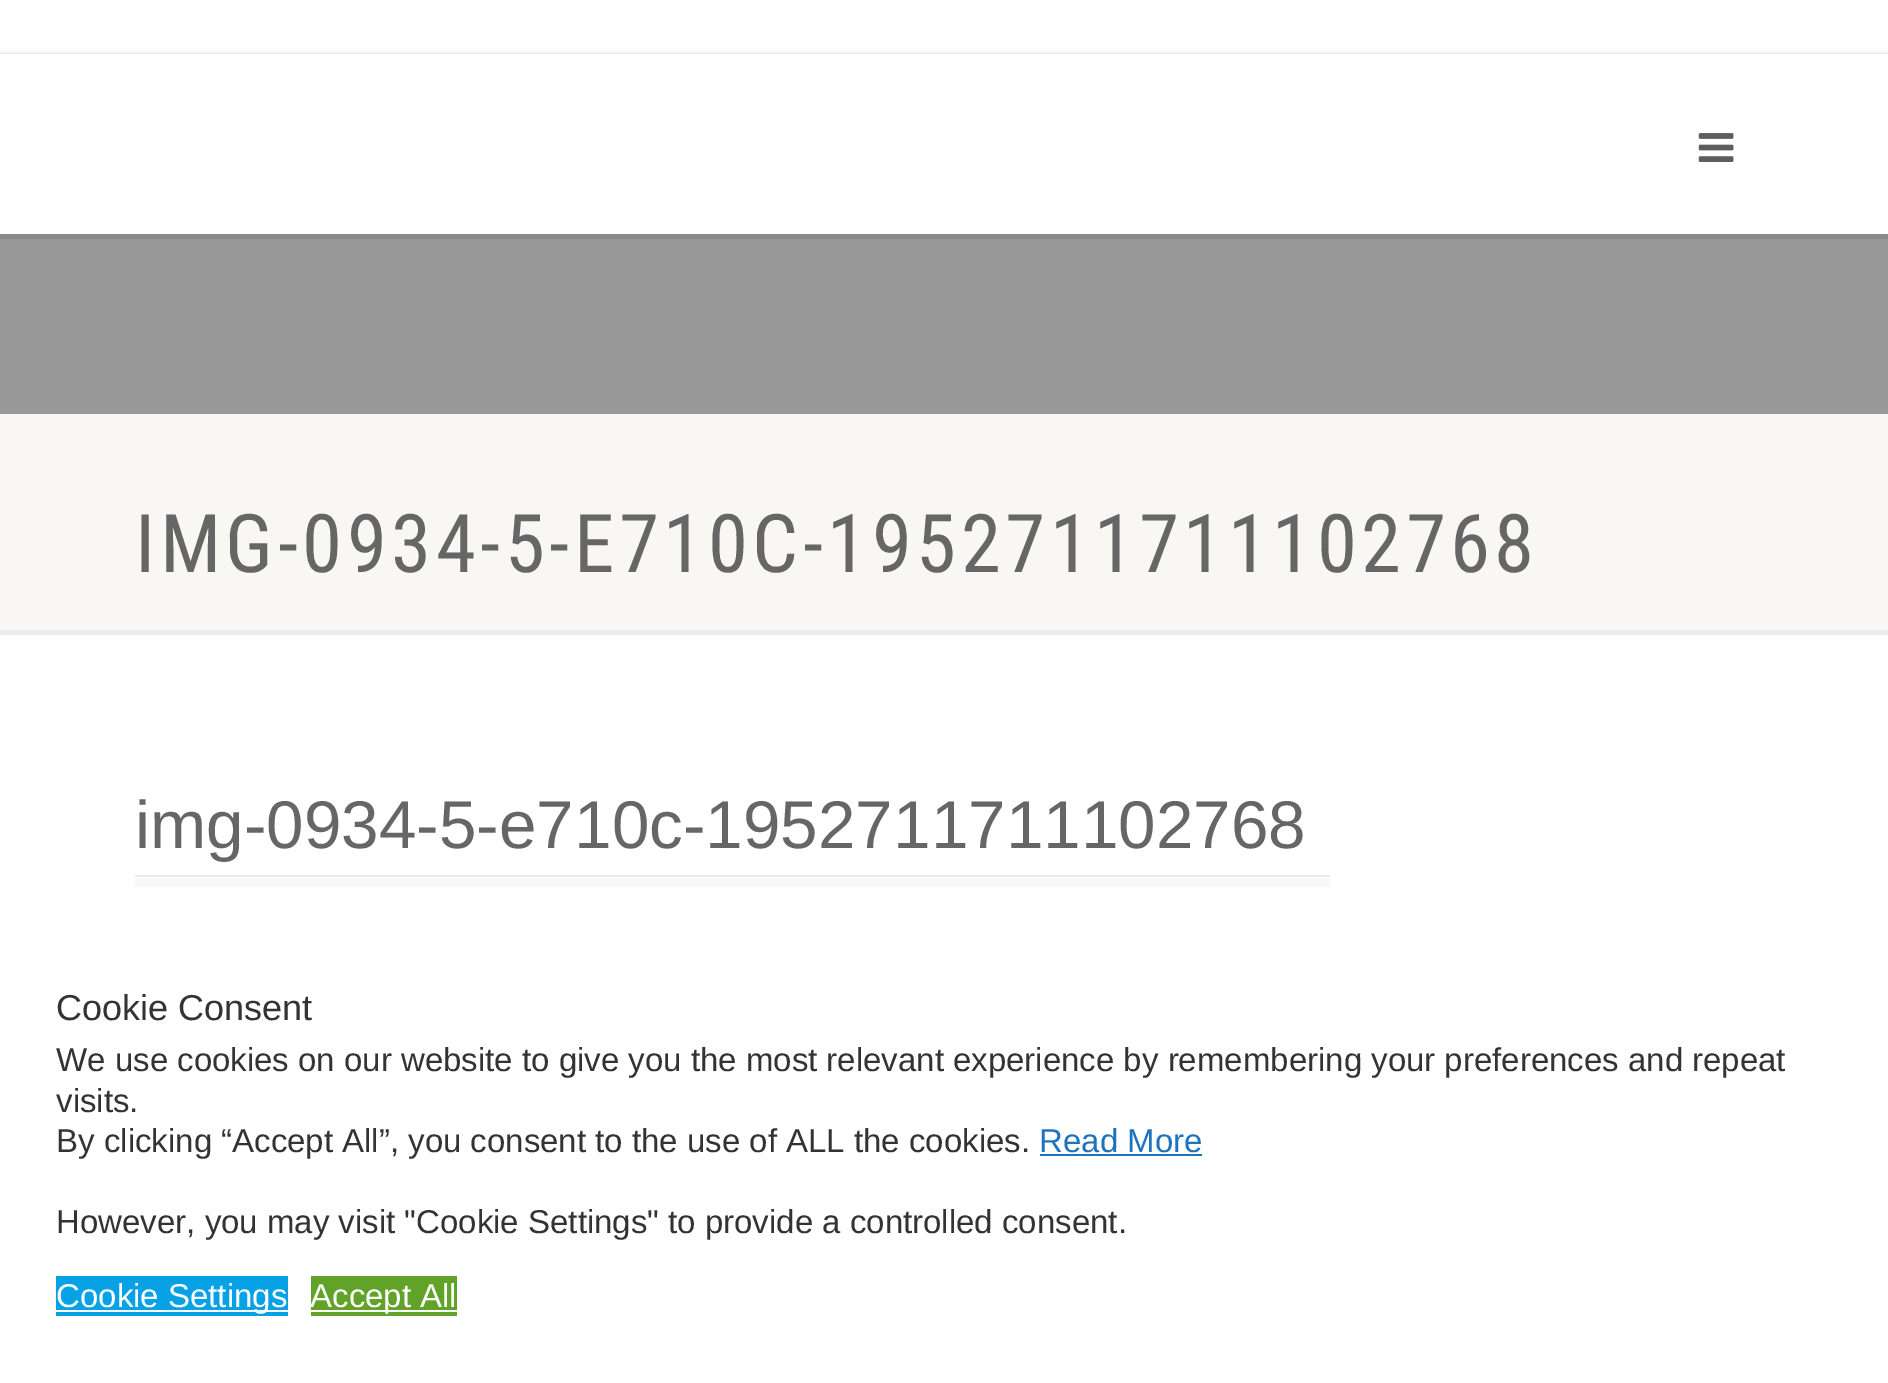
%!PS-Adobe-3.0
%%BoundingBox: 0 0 1888 1383
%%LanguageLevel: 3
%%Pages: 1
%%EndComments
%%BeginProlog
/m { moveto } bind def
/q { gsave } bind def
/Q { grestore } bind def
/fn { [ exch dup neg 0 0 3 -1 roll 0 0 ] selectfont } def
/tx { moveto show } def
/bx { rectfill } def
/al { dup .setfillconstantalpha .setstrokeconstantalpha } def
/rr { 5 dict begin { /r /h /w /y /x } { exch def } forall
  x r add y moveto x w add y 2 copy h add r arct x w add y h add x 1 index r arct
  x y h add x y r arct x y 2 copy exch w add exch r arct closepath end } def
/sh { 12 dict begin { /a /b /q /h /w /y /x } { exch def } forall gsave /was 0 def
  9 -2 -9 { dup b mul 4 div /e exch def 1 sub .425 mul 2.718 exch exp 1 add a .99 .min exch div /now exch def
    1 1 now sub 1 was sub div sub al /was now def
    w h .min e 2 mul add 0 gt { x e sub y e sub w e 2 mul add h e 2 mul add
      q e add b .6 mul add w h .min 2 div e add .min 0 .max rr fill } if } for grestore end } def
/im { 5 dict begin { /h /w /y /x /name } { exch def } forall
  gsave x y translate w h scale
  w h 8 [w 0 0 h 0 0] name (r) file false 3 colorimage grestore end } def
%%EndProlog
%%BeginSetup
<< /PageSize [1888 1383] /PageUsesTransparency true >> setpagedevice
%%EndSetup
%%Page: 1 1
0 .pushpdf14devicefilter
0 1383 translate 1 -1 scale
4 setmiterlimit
1 setgray
0 0 1888 1383 bx
q
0 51 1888 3 rectclip
0 setgray
0 54 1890 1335 0 2 0.2 sh
Q
0.541 setgray
0 234 1888 5 bx
(image0.raw) 1698 133 36 29 im
0.6 setgray
0 239 1888 175 bx
0.929 setgray
0 630 1888 5 bx
0.973 0.969 0.953 setrgbcolor
0 414 1888 216 bx
/RobotoCondensed-Regular 81 fn
0.4 setgray
135 572 m 4.5 0 (IMG-0934-5-E710C-1952711711102768) ashow
0.925 0.918 0.894 setrgbcolor
135 875 1195 2 bx
/LiberationSans-Regular 67.5 fn
0.4 setgray
(img-0934-5-e710c-1952711711102768) 135 848 tx
0.973 0.969 0.953 setrgbcolor
135 878 1195 9 bx
/LiberationSans-Regular 36 fn
0.2 setgray
(Cookie Consent) 56 1020 tx
/LiberationSans-Regular 33 fn
(We use cookies on our website to give you the most relevant experience by remembering your preferences and repeat) 56 1071 tx
(visits.) 56 1112 tx
(By clicking “Accept All”, you consent to the use of ALL the cookies.) 56 1152 tx
0.118 0.451 0.745 setrgbcolor
(Read More) 1039 1152 tx
1040 1154 162 2 bx
0.2 setgray
(However, you may visit "Cookie Settings" to provide a controlled consent.) 56 1233 tx
0.024 0.635 0.898 setrgbcolor
56 1276 232 40 bx
1 setgray
56 1310 232 2 bx
(Cookie Settings) 56 1307 tx
0.38 0.635 0.161 setrgbcolor
311 1276 146 40 bx
1 setgray
311 1310 146 2 bx
(Accept All) 310 1307 tx
.poppdf14devicefilter showpage
%%EOF
